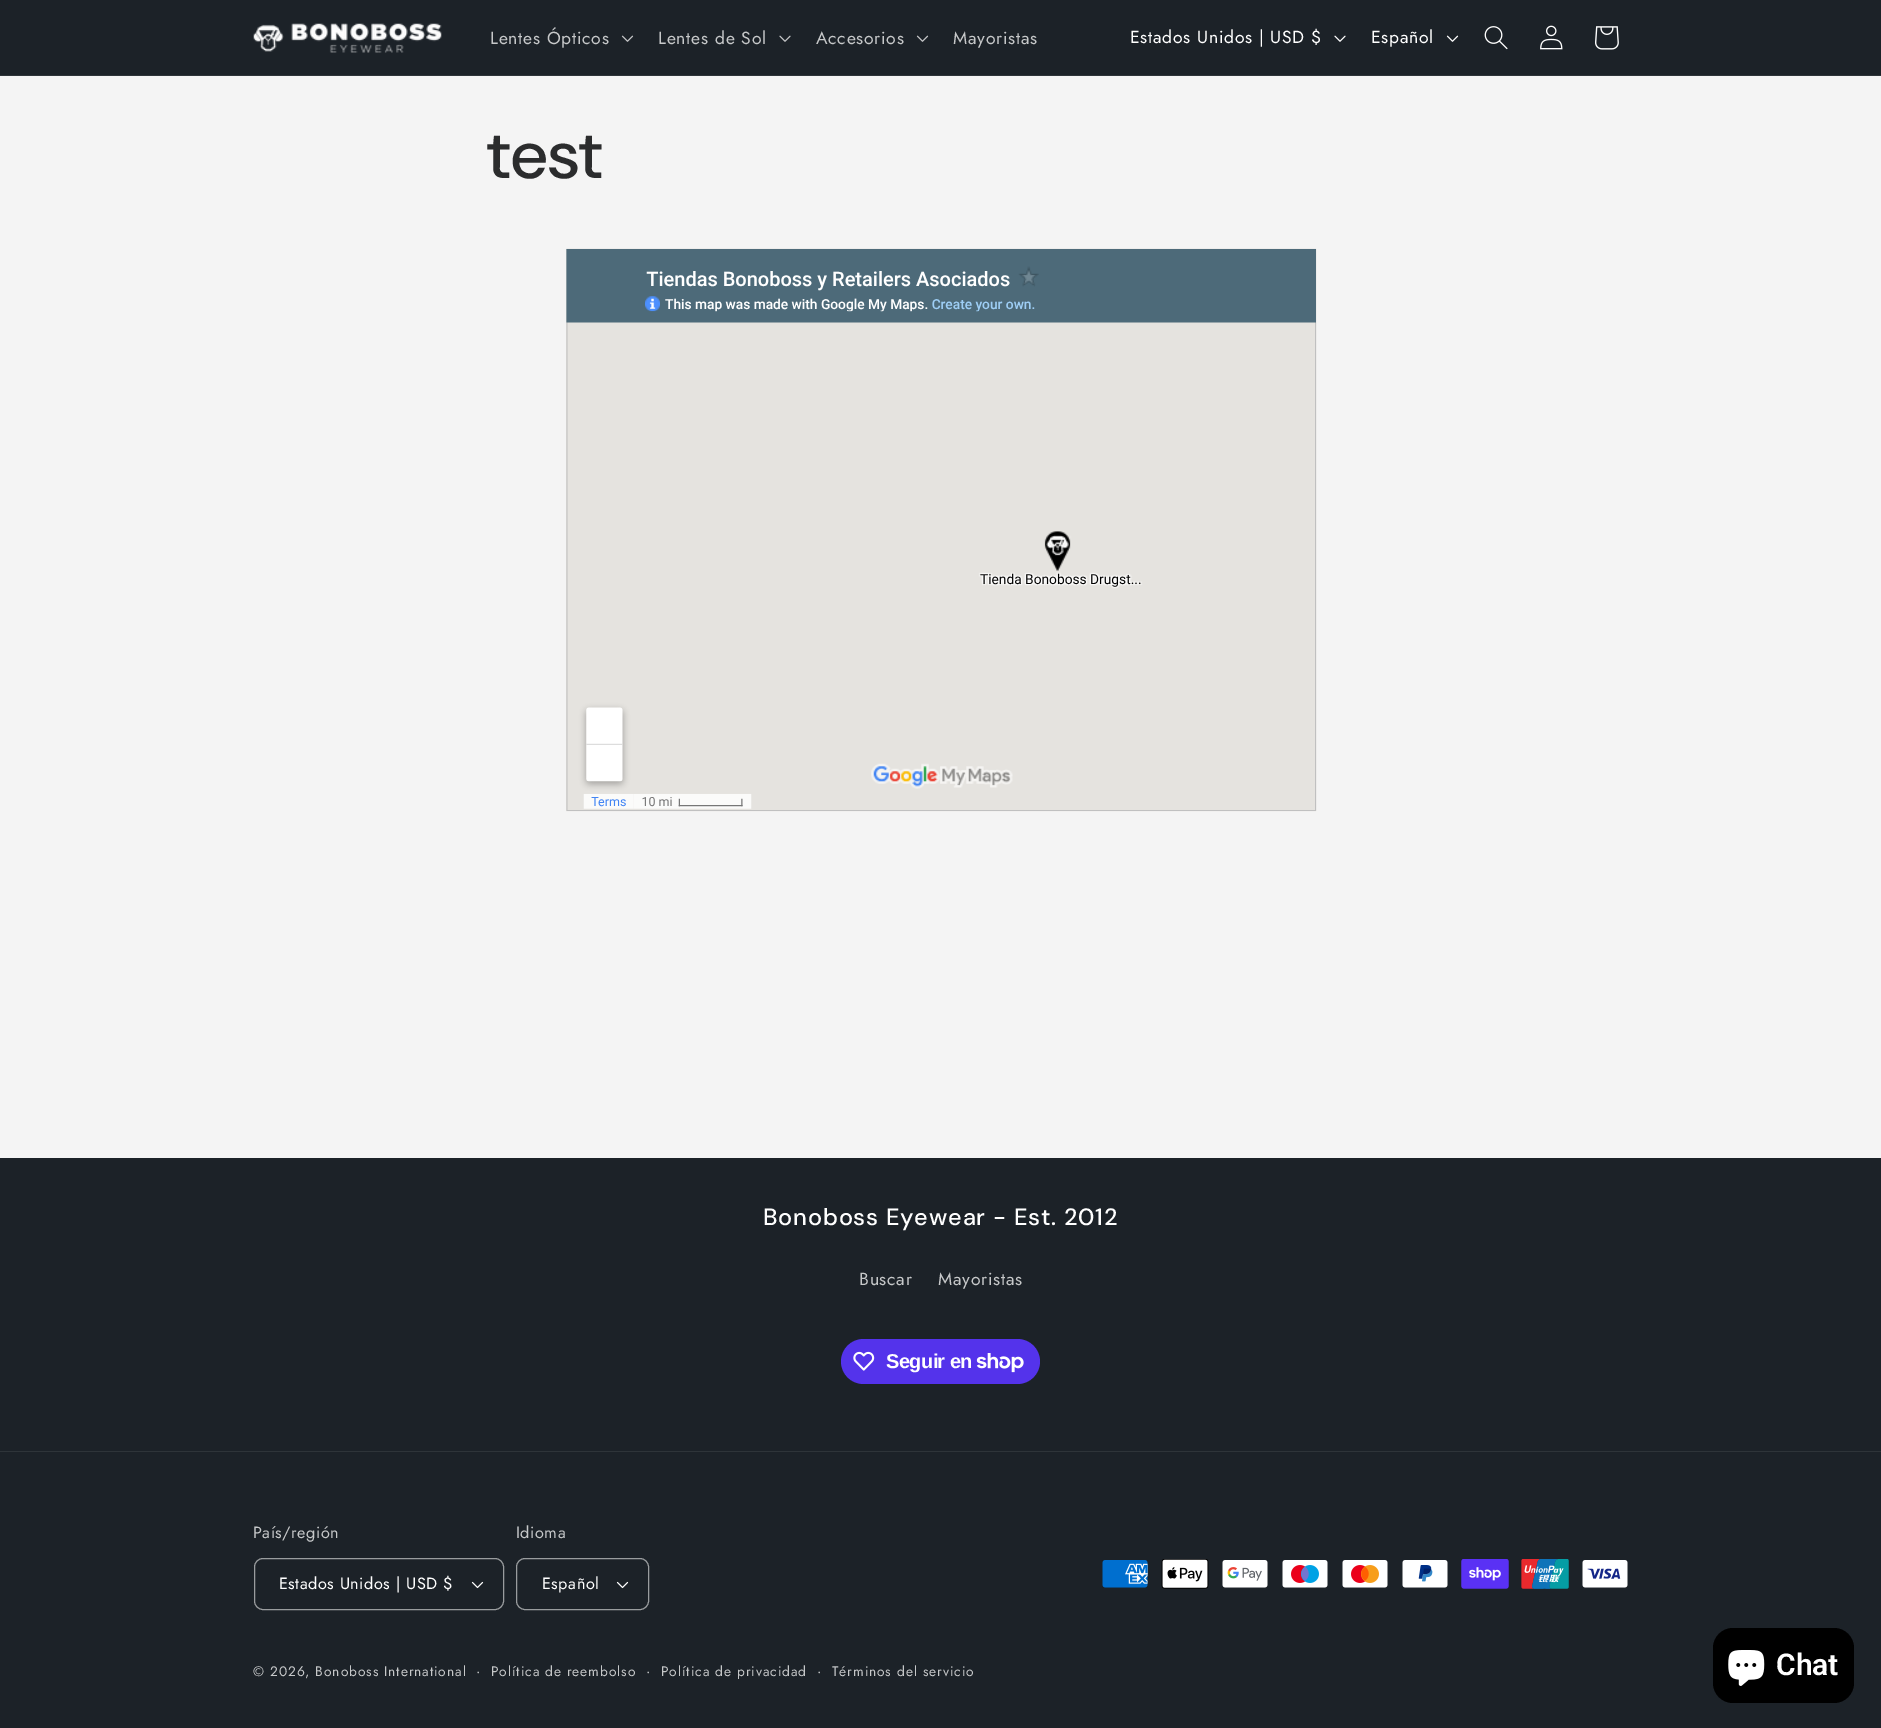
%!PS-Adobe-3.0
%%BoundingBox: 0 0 1881 1728
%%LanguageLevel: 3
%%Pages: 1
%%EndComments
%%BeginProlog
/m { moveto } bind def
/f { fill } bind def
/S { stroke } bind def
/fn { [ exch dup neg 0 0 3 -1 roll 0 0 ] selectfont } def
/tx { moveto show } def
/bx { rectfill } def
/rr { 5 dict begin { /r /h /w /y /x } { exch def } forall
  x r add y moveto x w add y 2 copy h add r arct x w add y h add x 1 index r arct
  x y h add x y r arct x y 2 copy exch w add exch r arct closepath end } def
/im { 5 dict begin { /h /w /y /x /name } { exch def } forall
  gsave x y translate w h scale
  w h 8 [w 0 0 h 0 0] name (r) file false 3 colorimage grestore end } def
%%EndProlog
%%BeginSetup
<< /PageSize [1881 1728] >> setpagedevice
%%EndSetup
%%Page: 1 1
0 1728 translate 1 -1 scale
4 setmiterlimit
0.957 setgray
0 0 1881 1728 bx
0.11 0.133 0.157 setrgbcolor
0 0 1881 75 bx
0.18 0.204 0.224 setrgbcolor
0 75 1881 1 bx
(image0.raw) 253 23 189 30 im
/Jost-Regular 17.5 fn
0.776 0.784 0.788 setrgbcolor
490 44 m 0.75 0 (Lentes Ópticos) ashow
(image1.raw) 621 35 13 7 im
658 44 m 0.75 0 (Lentes de Sol) ashow
(image2.raw) 779 35 12 7 im
816 44 m 0.75 0 (Accesorios) ashow
(image1.raw) 916 35 13 7 im
953 44 m 0.75 0 (Mayoristas) ashow
1 setgray
1130 43 m 0.75 0 (Estados Unidos | USD $) ashow
(image3.raw) 1334 35 12 7 im
1371 43 m 0.75 0 (Español) ashow
(image4.raw) 1446 35 13 7 im
(image5.raw) 1484 26 24 24 im
(image6.raw) 1540 25 23 25 im
(image7.raw) 1595 26 24 24 im
/DMSans-Medium 68 fn
0.169 0.173 0.176 setrgbcolor
487 178 m 0.8 0 (test) ashow
(image8.raw) 566 248 751 564 im
0.11 0.133 0.157 setrgbcolor
0 1158 1881 570 bx
/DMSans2-Medium 23.6 fn
1 setgray
763 1225 m 0.8 0 (Bonoboss Eyewear - Est. 2012) ashow
/Jost-Regular 17.5 fn
0.776 0.784 0.788 setrgbcolor
859 1285 m 0.75 0 (Buscar) ashow
938 1285 m 0.75 0 (Mayoristas) ashow
0.329 0.2 0.922 setrgbcolor
841 1339 199 45 22.5 rr f
(image9.raw) 853 1351 22 20 im
/LiberationSans-Bold 20 fn
1 setgray
886 1368 m -0.6 0 (Seguir en) ashow
(image10.raw) 976 1353 48 20 im
0.18 0.204 0.224 setrgbcolor
0 1451 1881 1 bx
/Jost-Regular 16.25 fn
0.776 0.784 0.788 setrgbcolor
253 1538 m 0.5 0 (País/región) ashow
(image11.raw) 471 1581 13 8 im
0.6 0.612 0.62 setrgbcolor
254.5 1558.5 249 51 8.5 rr S
1 setgray
279 1589 m 0.5 0 (Estados Unidos | USD $) ashow
0.776 0.784 0.788 setrgbcolor
516 1538 m 0.5 0 (Idioma) ashow
(image11.raw) 616 1581 13 8 im
0.6 0.612 0.62 setrgbcolor
516.5 1558.5 132 51 8.5 rr S
1 setgray
542 1589 m 0.5 0 (Español) ashow
(image12.raw) 1102 1560 46 28 im
(image13.raw) 1161 1559 48 30 im
(image14.raw) 1222 1560 46 28 im
(image15.raw) 1282 1560 46 28 im
(image16.raw) 1342 1560 46 28 im
(image17.raw) 1402 1560 46 28 im
(image18.raw) 1461 1559 48 30 im
(image19.raw) 1521 1559 48 30 im
(image20.raw) 1582 1560 46 28 im
/Jost-Regular 13.75 fn
0.776 0.784 0.788 setrgbcolor
253 1676 m 0.9 0 (© 2026, Bonoboss International) ashow
/Jost-Regular 15 fn
476 1676 m 0.9 0 (·) ashow
/Jost-Regular 13.75 fn
491 1676 m 0.9 0 (Política de reembolso) ashow
/Jost-Regular 15 fn
646 1676 m 0.9 0 (·) ashow
/Jost-Regular 13.75 fn
661 1676 m 0.9 0 (Política de privacidad) ashow
/Jost-Regular 15 fn
817 1676 m 0.9 0 (·) ashow
/Jost-Regular 13.75 fn
832 1676 m 0.9 0 (Términos del servicio) ashow
0 setgray
1713 1628 141 75 20 rr f
(image21.raw) 1728 1650 37 36 im
/Roboto-SemiBold 30 fn
1 setgray
(Chat) 1776 1675 tx
showpage
%%EOF
